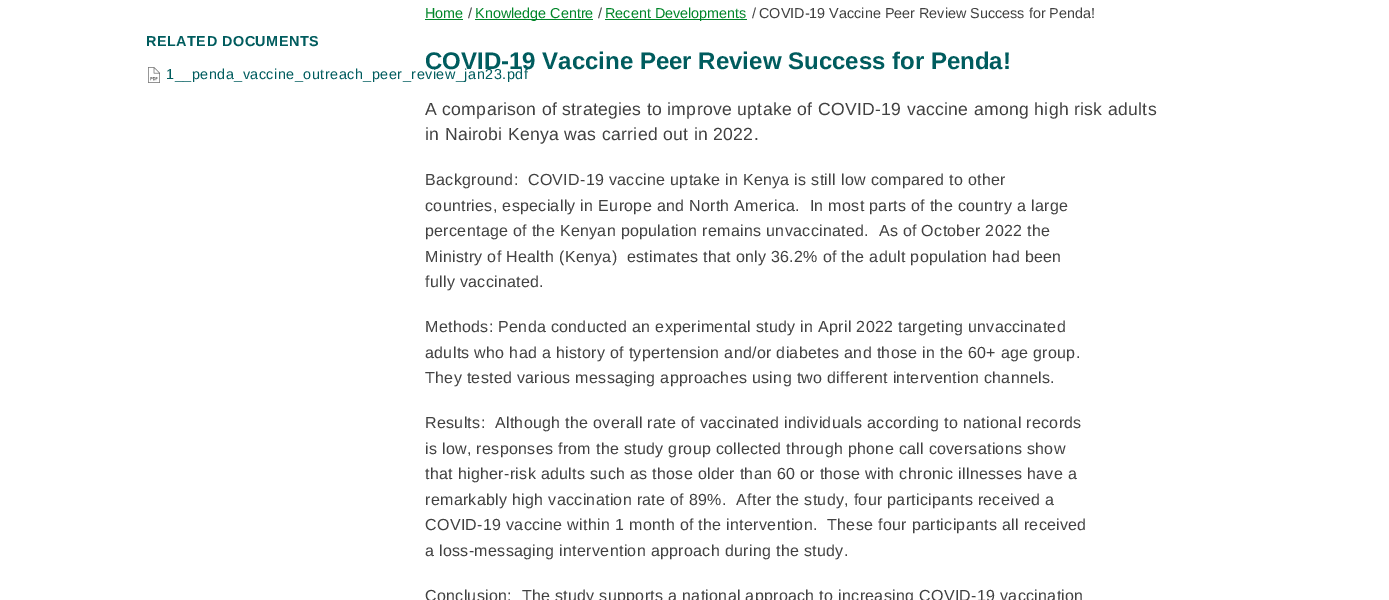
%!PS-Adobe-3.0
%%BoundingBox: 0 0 1389 600
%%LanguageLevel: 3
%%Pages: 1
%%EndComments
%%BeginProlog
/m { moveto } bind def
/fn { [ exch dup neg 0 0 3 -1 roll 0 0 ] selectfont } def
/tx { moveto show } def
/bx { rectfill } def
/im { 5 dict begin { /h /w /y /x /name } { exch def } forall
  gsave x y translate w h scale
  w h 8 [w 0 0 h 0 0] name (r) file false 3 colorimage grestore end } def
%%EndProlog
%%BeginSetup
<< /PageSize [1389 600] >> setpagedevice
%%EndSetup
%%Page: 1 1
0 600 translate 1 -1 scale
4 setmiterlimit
1 setgray
0 0 1389 600 bx
/LiberationSans-Bold 14.4 fn
0 0.361 0.369 setrgbcolor
146 46 m 0.5 0 (RELATED DOCUMENTS) ashow
(image0.raw) 148 67 12 16 im
/LiberationSans-Regular 14.4 fn
166 79 m 0.5 0 (1__penda_vaccine_outreach_peer_review_jan23.pdf) ashow
0 0.522 0.157 setrgbcolor
(Home) 425 18 tx
425 19 38 1 bx
0.255 setgray
(/) 468 18 tx
0 0.522 0.157 setrgbcolor
475 19 118 1 bx
(Knowledge Centre) 475 18 tx
0.255 setgray
(/) 598 18 tx
0 0.522 0.157 setrgbcolor
605 19 142 1 bx
(Recent Developments) 605 18 tx
0.255 setgray
(/) 752 18 tx
(COVID-19 Vaccine Peer Review Success for Penda!) 759 18 tx
/LiberationSans-Bold 24 fn
0 0.361 0.369 setrgbcolor
(COVID-19 Vaccine Peer Review Success for Penda!) 425 69 tx
/LiberationSans-Regular 17.6 fn
0.255 setgray
425 115 m 0.32 0 (A comparison of strategies to improve uptake of COVID-19 vaccine among high risk adults) ashow
425 140 m 0.32 0 (in Nairobi Kenya was carried out in 2022.) ashow
/LiberationSans-Regular 16 fn
425 185 m 0.32 0 (Background:  COVID-19 vaccine uptake in Kenya is still low compared to other) ashow
425 211 m 0.32 0 (countries, especially in Europe and North America.  In most parts of the country a large) ashow
425 236 m 0.32 0 (percentage of the Kenyan population remains unvaccinated.  As of October 2022 the) ashow
425 262 m 0.32 0 (Ministry of Health \(Kenya\)  estimates that only 36.2% of the adult population had been) ashow
425 287 m 0.32 0 (fully vaccinated.) ashow
425 332 m 0.32 0 (Methods: Penda conducted an experimental study in April 2022 targeting unvaccinated) ashow
425 358 m 0.32 0 (adults who had a history of typertension and/or diabetes and those in the 60+ age group.) ashow
425 383 m 0.32 0 (They tested various messaging approaches using two different intervention channels.) ashow
425 428 m 0.32 0 (Results:  Although the overall rate of vaccinated individuals according to national records) ashow
425 454 m 0.32 0 (is low, responses from the study group collected through phone call coversations show) ashow
425 479 m 0.32 0 (that higher-risk adults such as those older than 60 or those with chronic illnesses have a) ashow
425 505 m 0.32 0 (remarkably high vaccination rate of 89%.  After the study, four participants received a) ashow
425 530 m 0.32 0 (COVID-19 vaccine within 1 month of the intervention.  These four participants all received) ashow
425 556 m 0.32 0 (a loss-messaging intervention approach during the study.) ashow
425 601 m 0.32 0 (Conclusion:  The study supports a national approach to increasing COVID-19 vaccination) ashow
showpage
%%EOF
